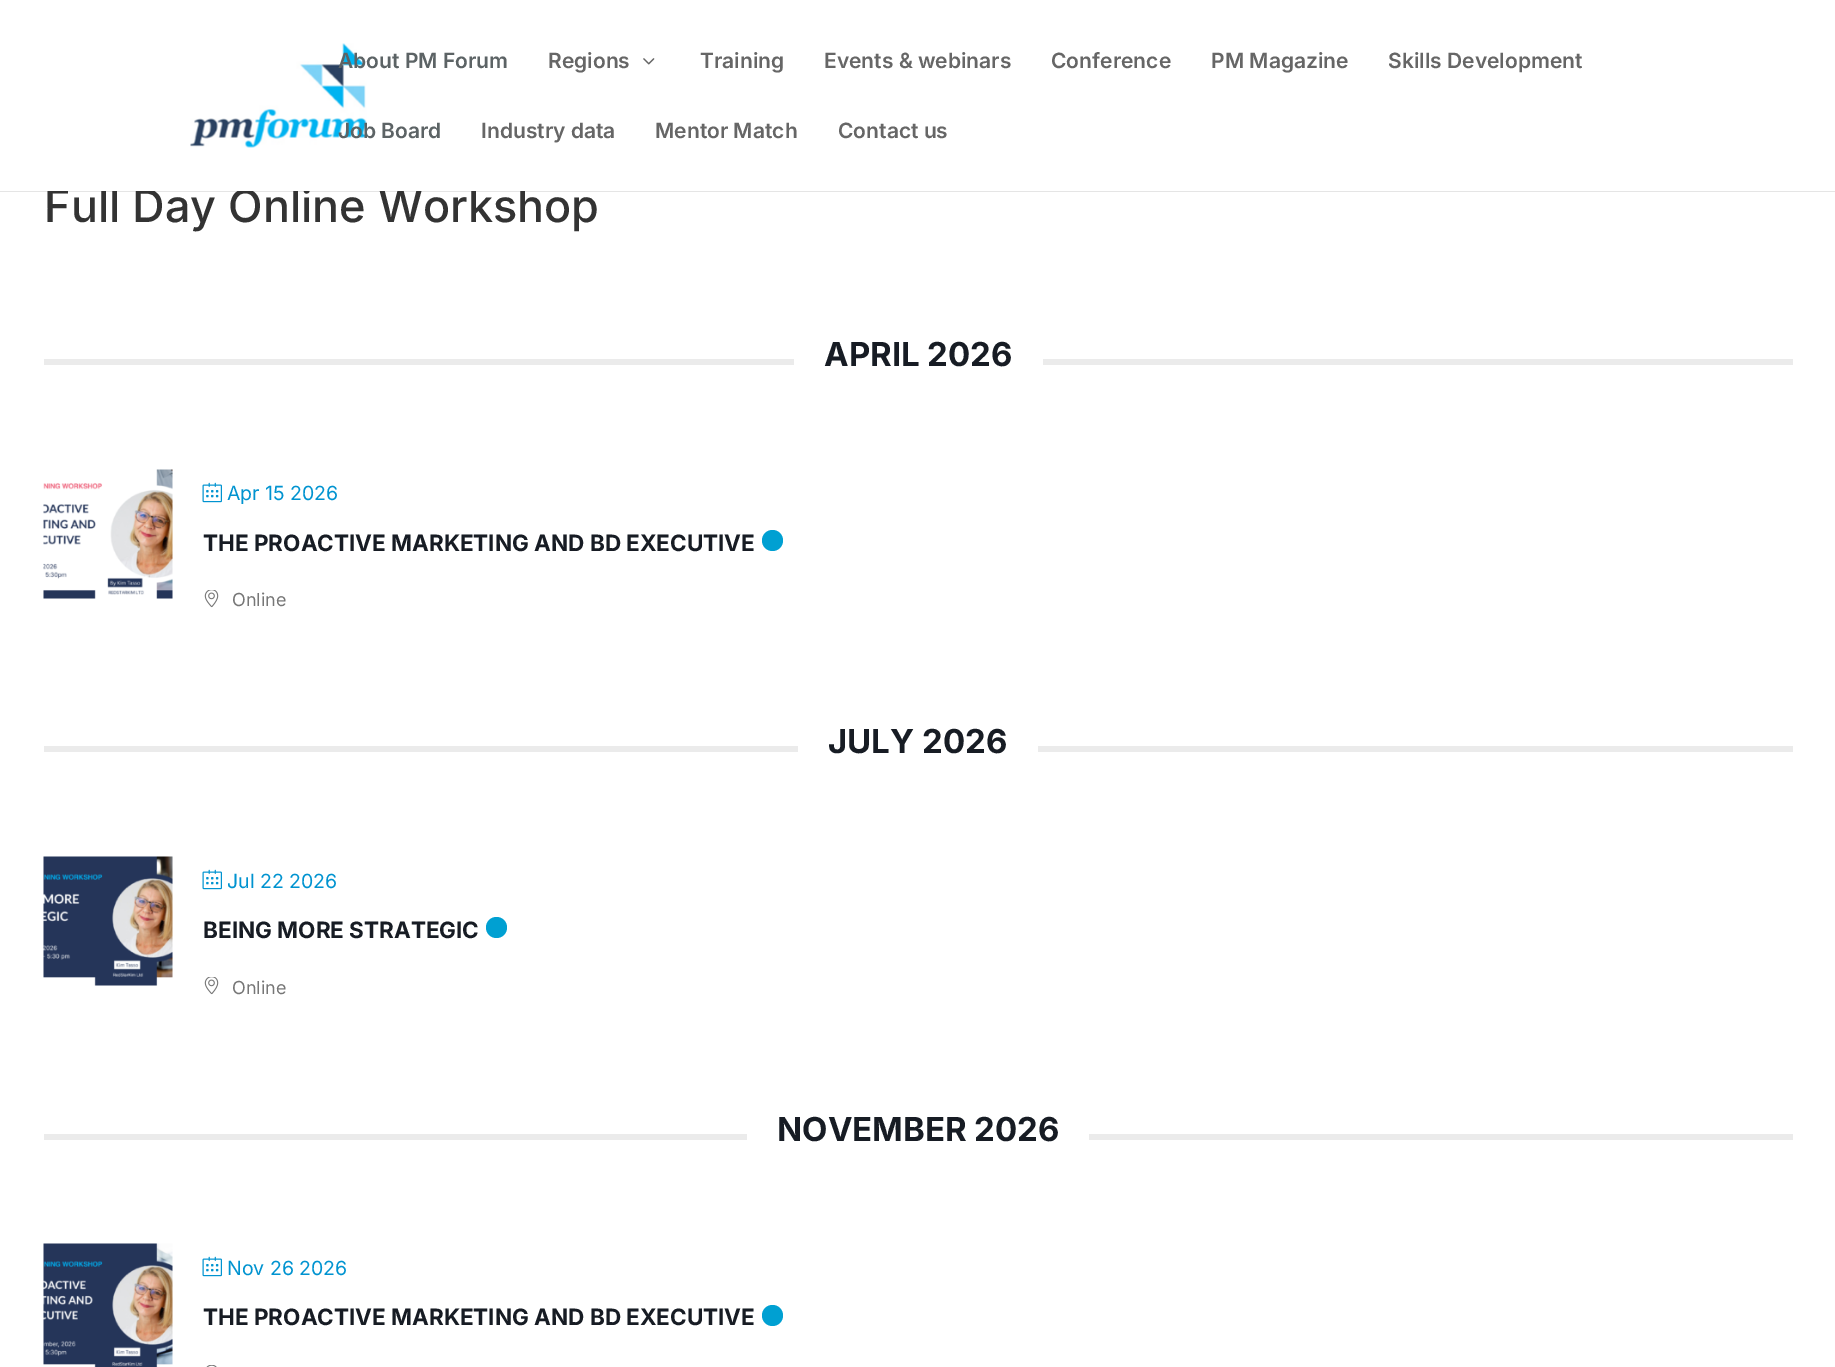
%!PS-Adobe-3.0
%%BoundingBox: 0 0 1835 1367
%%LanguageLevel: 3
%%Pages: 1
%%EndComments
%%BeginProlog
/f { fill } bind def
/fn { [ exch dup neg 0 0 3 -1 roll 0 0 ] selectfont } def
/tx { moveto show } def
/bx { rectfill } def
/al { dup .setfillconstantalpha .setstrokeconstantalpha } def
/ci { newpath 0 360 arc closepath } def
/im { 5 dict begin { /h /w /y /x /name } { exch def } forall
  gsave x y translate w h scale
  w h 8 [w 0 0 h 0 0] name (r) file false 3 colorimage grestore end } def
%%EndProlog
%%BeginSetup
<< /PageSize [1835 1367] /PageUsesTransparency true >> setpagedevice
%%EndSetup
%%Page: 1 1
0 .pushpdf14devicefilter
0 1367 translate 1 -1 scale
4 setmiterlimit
1 setgray
0 0 1835 1367 bx
0.1 al
0 setgray
0 191 1835 1 bx
/Inter-Medium 45 fn
1 al
0.2 setgray
(Full Day Online Workshop) 44 222 tx
1 setgray
47 187 478 4 bx
(image0.raw) 190 43 178 105 im
/Inter-SemiBold 21 fn
0.361 0.388 0.396 setrgbcolor
(About PM Forum) 338 68 tx
0.4 setgray
(Regions) 548 68 tx
(image1.raw) 643 58 12 7 im
(Training) 700 68 tx
(Events & webinars) 824 68 tx
(Conference) 1051 68 tx
(PM Magazine) 1211 68 tx
(Skills Development) 1388 68 tx
0.361 0.388 0.396 setrgbcolor
(Job Board) 338 138 tx
0.4 setgray
(Industry data) 481 138 tx
(Mentor Match) 655 138 tx
(Contact us) 838 138 tx
0.922 setgray
44 359 750 6 bx
/Inter-Bold 33 fn
0.09 0.11 0.141 setrgbcolor
(APRIL 2026) 824 366 tx
0.922 setgray
1043 359 750 6 bx
(image2.raw) 43 469 130 130 im
(image3.raw) 202 482 20 21 im
/Inter-Regular 19.5 fn
0 0.576 0.816 setrgbcolor
(Apr 15 2026) 227 500 tx
/Inter-Bold 22.5 fn
0.09 0.11 0.141 setrgbcolor
(THE PROACTIVE MARKETING AND BD EXECUTIVE) 203 551 tx
0 0.627 0.824 setrgbcolor
772.5 540.5 10.5 ci f
(image4.raw) 204 590 15 18 im
/Inter-Regular 18 fn
0.467 setgray
(Online) 232 606 tx
0.922 setgray
44 746 754 6 bx
/Inter-Bold 33 fn
0.09 0.11 0.141 setrgbcolor
(JULY 2026) 828 753 tx
0.922 setgray
1038 746 755 6 bx
(image5.raw) 43 856 130 130 im
(image3.raw) 202 869 20 21 im
/Inter-Regular 19.5 fn
0 0.576 0.816 setrgbcolor
(Jul 22 2026) 227 888 tx
/Inter-Bold 22.5 fn
0.09 0.11 0.141 setrgbcolor
(BEING MORE STRATEGIC) 203 938 tx
0 0.627 0.824 setrgbcolor
496.5 927.5 10.5 ci f
(image4.raw) 204 977 15 18 im
/Inter-Regular 18 fn
0.467 setgray
(Online) 232 994 tx
0.922 setgray
44 1134 703 6 bx
/Inter-Bold 33 fn
0.09 0.11 0.141 setrgbcolor
(NOVEMBER 2026) 777 1141 tx
0.922 setgray
1089 1134 704 6 bx
(image6.raw) 43 1243 130 124 im
(image3.raw) 202 1256 20 21 im
/Inter-Regular 19.5 fn
0 0.576 0.816 setrgbcolor
(Nov 26 2026) 227 1275 tx
/Inter-Bold 22.5 fn
0.09 0.11 0.141 setrgbcolor
(THE PROACTIVE MARKETING AND BD EXECUTIVE) 203 1325 tx
0 0.627 0.824 setrgbcolor
772.5 1315.5 10.5 ci f
(image7.raw) 206 1365 11 2 im
.poppdf14devicefilter showpage
%%EOF
